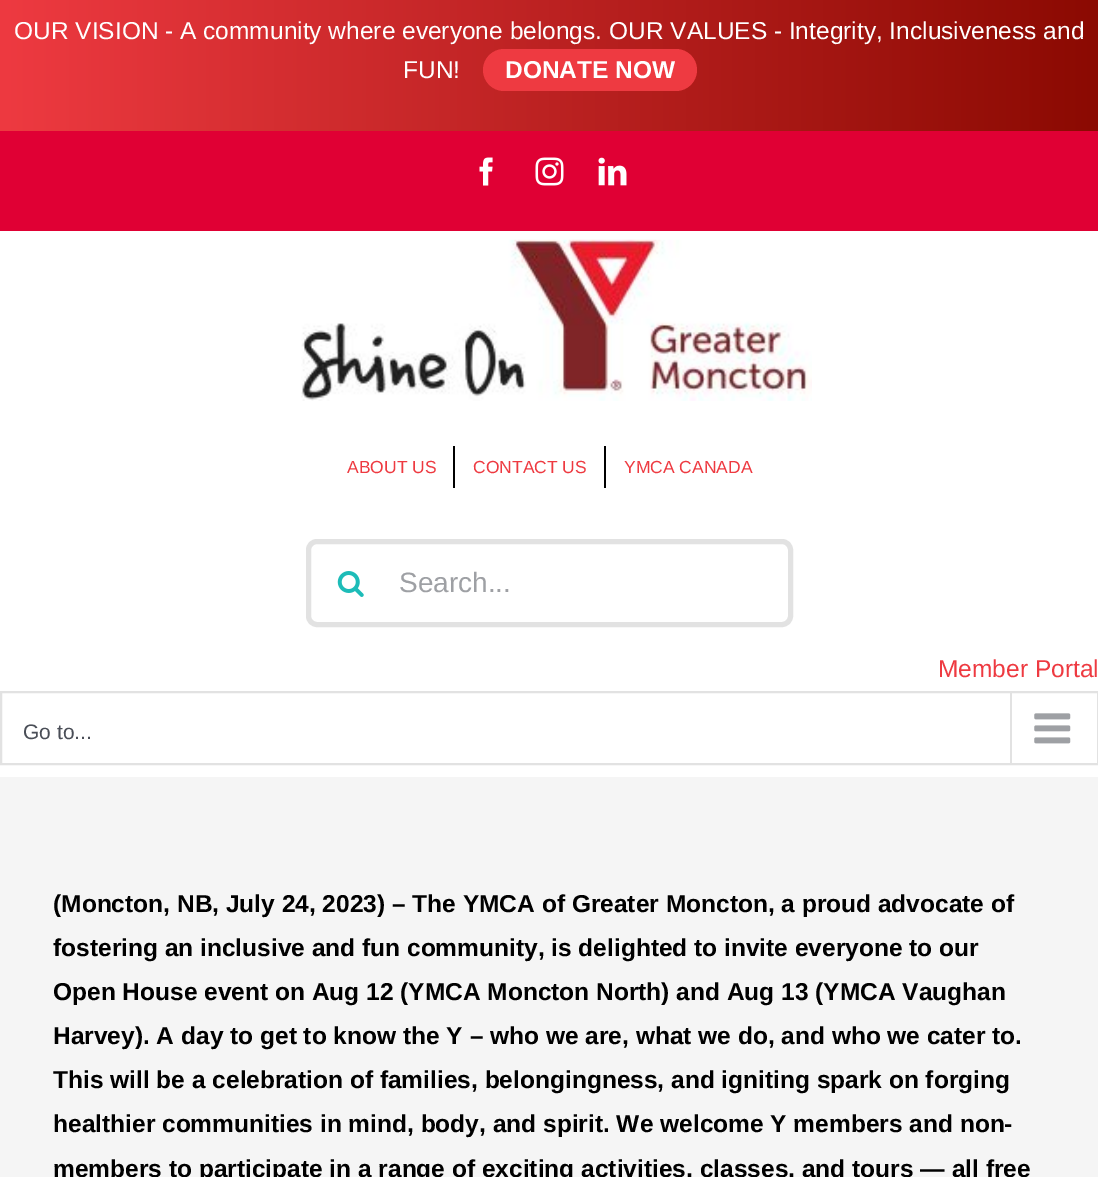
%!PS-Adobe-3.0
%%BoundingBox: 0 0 1098 1177
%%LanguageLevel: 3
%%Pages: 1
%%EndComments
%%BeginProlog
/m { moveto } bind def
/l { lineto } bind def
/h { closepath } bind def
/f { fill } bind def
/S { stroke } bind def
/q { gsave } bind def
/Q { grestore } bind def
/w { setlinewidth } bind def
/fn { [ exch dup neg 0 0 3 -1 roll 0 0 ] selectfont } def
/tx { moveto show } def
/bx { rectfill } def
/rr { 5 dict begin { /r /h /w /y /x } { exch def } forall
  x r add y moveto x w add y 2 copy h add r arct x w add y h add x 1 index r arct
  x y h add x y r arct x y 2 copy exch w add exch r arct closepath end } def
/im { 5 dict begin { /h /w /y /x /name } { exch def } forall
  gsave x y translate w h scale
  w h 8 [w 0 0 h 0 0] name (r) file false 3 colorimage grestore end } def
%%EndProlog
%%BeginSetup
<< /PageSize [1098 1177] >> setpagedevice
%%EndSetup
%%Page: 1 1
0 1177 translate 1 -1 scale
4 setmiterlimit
1 setgray
0 0 1098 1177 bx
q 0 0 m 1098 0 l 1098 131 l 0 131 l h clip newpath
<< /ShadingType 2 /ColorSpace /DeviceRGB /Coords [0 66 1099 66] /Extend [true true] /Function << /FunctionType 2 /Domain [0 1] /C0 [0.933 0.227 0.255] /C1 [0.545 0.039 0.008] /N 1 >> >> shfill Q
/LiberationSans-Regular 24.5 fn
(OUR VISION - A community where everyone belongs. OUR VALUES - Integrity, Inclusiveness and) 14 39 tx
(FUN!) 403 78 tx
0.933 0.227 0.255 setrgbcolor
483 49 214 42 21 rr f
/LiberationSans-Bold 24.5 fn
1 setgray
(DONATE NOW) 505 78 tx
0.878 0 0.204 setrgbcolor
0 131 1098 100 bx
(image0.raw) 479 157 14 29 im
(image1.raw) 535 157 29 29 im
(image2.raw) 598 157 29 29 im
(image3.raw) 301 239 511 162 im
/LiberationSans-Regular 17.5 fn
0.933 0.227 0.255 setrgbcolor
(ABOUT US) 347 473 tx
0 setgray
453 446 2 42 bx
0.933 0.227 0.255 setrgbcolor
(CONTACT US) 473 473 tx
0 setgray
604 446 2 42 bx
0.933 0.227 0.255 setrgbcolor
(YMCA CANADA) 624 473 tx
0.886 setgray
5 w
308.5 541.5 482 83 8.5 rr S
(image4.raw) 337 571 27 26 im
/LiberationSans-Regular 28 fn
0.62 0.627 0.643 setrgbcolor
(Search...) 399 592 tx
/LiberationSans-Regular 24.5 fn
0.933 0.227 0.255 setrgbcolor
(Member Portal) 938 677 tx
0.886 setgray
2 w
1 692 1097 72 rectstroke
/LiberationSans-Regular 21 fn
0.29 0.306 0.341 setrgbcolor
(Go to...) 23 739 tx
0.886 setgray
1010 693 2 70 bx
(image5.raw) 1034 713 37 31 im
0.961 setgray
0 777 1098 400 bx
/LiberationSans-Bold 24.5 fn
0 setgray
(\(Moncton, NB, July 24, 2023\) – The YMCA of Greater Moncton, a proud advocate of) 53 912 tx
(fostering an inclusive and fun community, is delighted to invite everyone to our) 53 956 tx
(Open House event on Aug 12 \(YMCA Moncton North\) and Aug 13 \(YMCA Vaughan) 53 1000 tx
(Harvey\). A day to get to know the Y – who we are, what we do, and who we cater to.) 53 1044 tx
(This will be a celebration of families, belongingness, and igniting spark on forging) 53 1088 tx
(healthier communities in mind, body, and spirit. We welcome Y members and non-) 53 1132 tx
(members to participate in a range of exciting activities, classes, and tours — all free) 53 1177 tx
showpage
%%EOF
